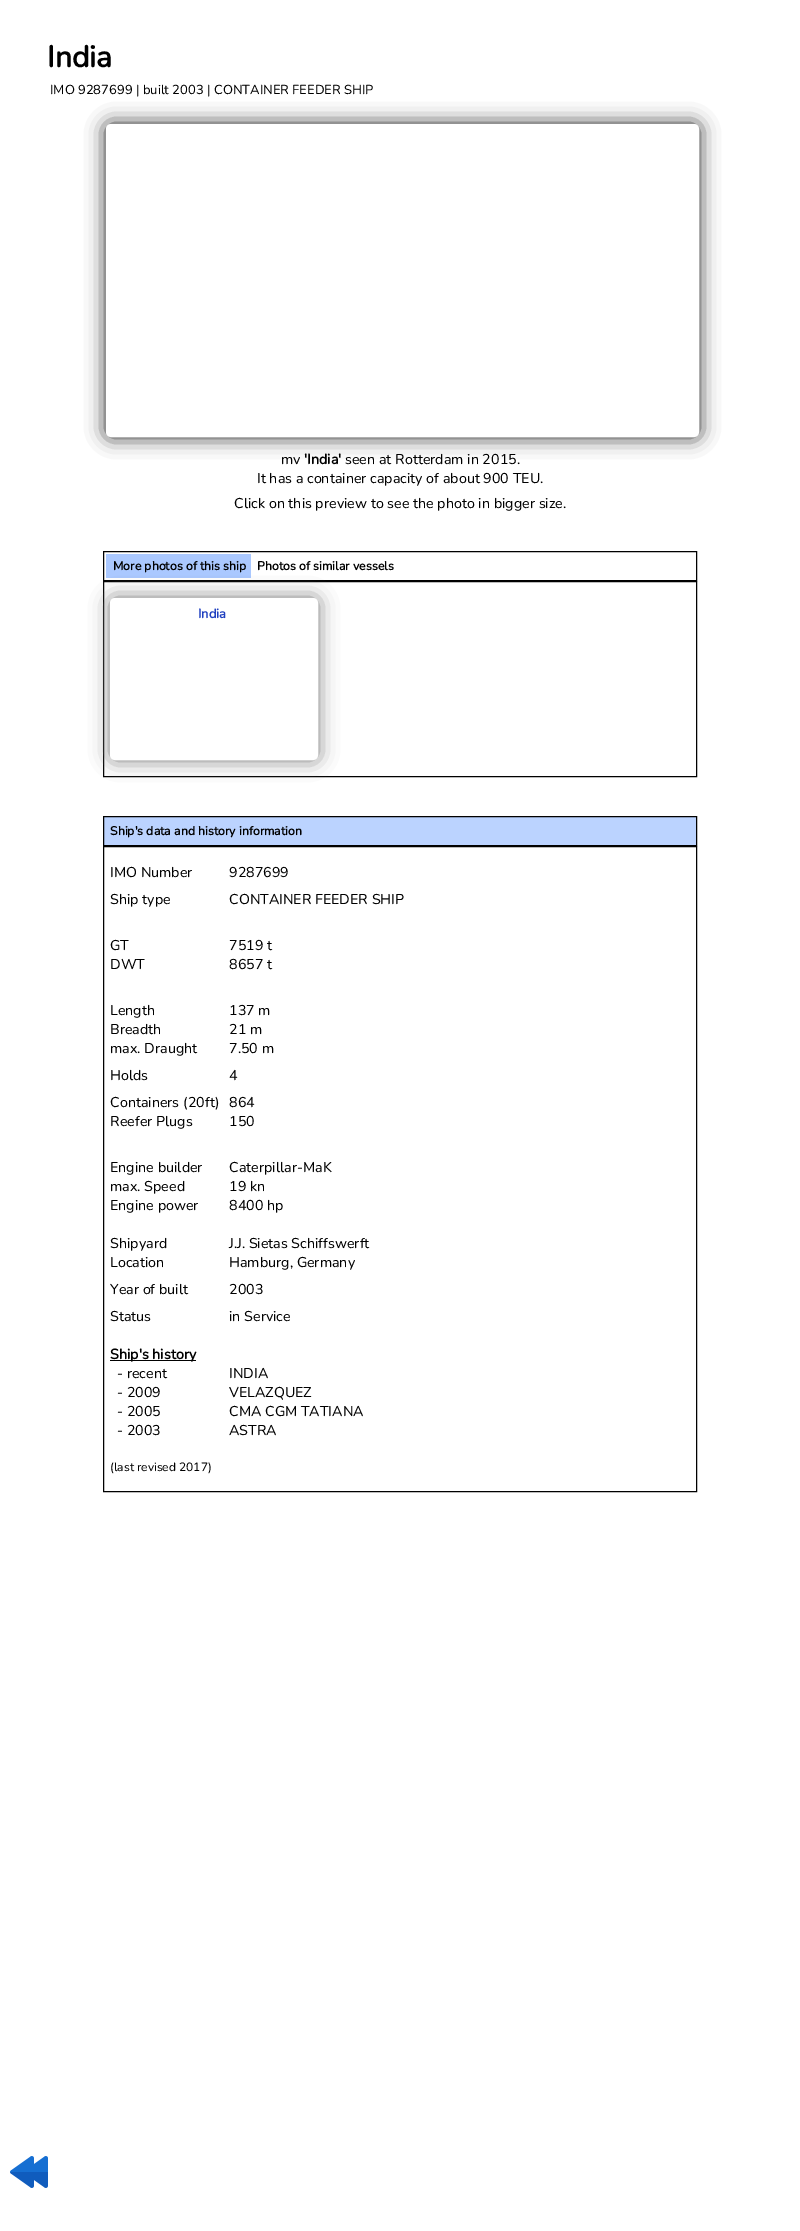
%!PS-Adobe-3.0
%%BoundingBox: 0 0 800 2231
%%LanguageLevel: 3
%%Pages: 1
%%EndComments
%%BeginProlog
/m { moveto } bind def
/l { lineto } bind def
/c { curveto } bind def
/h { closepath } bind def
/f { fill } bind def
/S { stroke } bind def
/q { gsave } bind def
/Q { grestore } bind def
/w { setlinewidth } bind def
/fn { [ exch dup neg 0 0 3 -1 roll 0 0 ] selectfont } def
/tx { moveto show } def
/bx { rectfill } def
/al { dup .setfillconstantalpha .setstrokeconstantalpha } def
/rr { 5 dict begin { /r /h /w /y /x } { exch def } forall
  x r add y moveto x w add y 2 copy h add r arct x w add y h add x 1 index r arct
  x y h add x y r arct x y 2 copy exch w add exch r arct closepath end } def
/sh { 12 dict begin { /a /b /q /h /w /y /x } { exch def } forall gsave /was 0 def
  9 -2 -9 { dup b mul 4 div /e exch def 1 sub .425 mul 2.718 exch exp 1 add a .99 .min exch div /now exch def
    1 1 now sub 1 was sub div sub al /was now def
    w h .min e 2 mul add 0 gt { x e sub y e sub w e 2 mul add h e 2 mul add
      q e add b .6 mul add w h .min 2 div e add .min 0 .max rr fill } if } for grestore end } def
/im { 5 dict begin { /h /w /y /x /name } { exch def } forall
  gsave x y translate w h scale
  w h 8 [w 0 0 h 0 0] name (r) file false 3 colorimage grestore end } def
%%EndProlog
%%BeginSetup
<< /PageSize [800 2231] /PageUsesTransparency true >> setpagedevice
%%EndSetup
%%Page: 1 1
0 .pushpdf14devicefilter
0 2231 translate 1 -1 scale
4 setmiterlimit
1 setgray
0 0 800 2231 bx
/Nunito-Bold 30 fn
0 setgray
(India) 47 67 tx
/Nunito-Regular 13 fn
(IMO 9287699 | built 2003 | CONTAINER FEEDER SHIP) 50 94 tx
q
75 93 m 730 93 l 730 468 l 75 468 l h 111 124 m 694 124 l 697 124 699 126 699 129 c 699 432 l 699 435 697 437 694 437 c 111 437 l 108 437 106 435 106 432 c 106 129 l 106 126 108 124 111 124 c h eoclip newpath
0.133 setgray
106 124 593 313 5 10 1 sh
Q
0.5 al
1 setgray
108 126 589 309 3 rr f
1 al
4 w
108 126 589 309 3 rr S
/Nunito-Regular 14.25 fn
0 setgray
(mv) 281 464 tx
/Nunito-Bold 14.25 fn
('India') 304 464 tx
/Nunito-Regular 14.25 fn
(seen at Rotterdam in 2015.) 345 464 tx
(It has a container capacity of about 900 TEU.) 257 483 tx
(Click on this preview to see the photo in bigger size.) 234 508 tx
1 w
103.5 551.5 593 29 rectstroke
0.667 0.784 1 setrgbcolor
106 554 145 24 bx
/Nunito-Bold 12.25 fn
0 setgray
(More photos of this ship) 113 570 tx
(Photos of similar vessels) 257 570 tx
103.5 581.5 593 195 rectstroke
q
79 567 m 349 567 l 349 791 l 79 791 l h 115 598 m 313 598 l 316 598 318 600 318 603 c 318 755 l 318 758 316 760 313 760 c 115 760 l 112 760 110 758 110 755 c 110 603 l 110 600 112 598 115 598 c h eoclip newpath
0.467 setgray
110 598 208 162 5 10 1 sh
Q
0.5 al
1 setgray
112 600 204 158 3 rr f
1 al
4 w
112 600 204 158 3 rr S
/Nunito-Bold 13 fn
0.125 0.251 0.753 setrgbcolor
(India) 198 618 tx
0.733 0.827 1 setrgbcolor
103.5 816.5 m 696.5 816.5 l 696.5 845.5 l 103.5 845.5 l h q f Q
0 setgray
1 w
S
/Nunito-Bold 12.25 fn
(Ship's data and history information) 110 835 tx
103.5 846.5 593 645 rectstroke
/Nunito-Regular 14.25 fn
(IMO Number) 110 877 tx
(Ship type) 110 904 tx
(GT) 110 950 tx
(DWT) 110 969 tx
(Length) 110 1015 tx
(Breadth) 110 1034 tx
(max. Draught) 110 1053 tx
(Holds) 110 1080 tx
(Containers \(20ft\)) 110 1107 tx
(Reefer Plugs) 110 1126 tx
(Engine builder) 110 1172 tx
(max. Speed) 110 1191 tx
(Engine power) 110 1210 tx
(Shipyard) 110 1248 tx
(Location) 110 1267 tx
(Year of built) 110 1294 tx
(Status) 110 1321 tx
110 1360 86 1 bx
/Nunito-Bold 14.25 fn
(Ship's history) 110 1359 tx
/Nunito-Regular 14.25 fn
(- recent) 117 1378 tx
(- 2009) 117 1397 tx
(- 2005) 117 1416 tx
(- 2003) 117 1435 tx
/Nunito-Regular 12 fn
(\(last revised 2017\)) 110 1471 tx
/Nunito-Regular 14.25 fn
(9287699) 229 877 tx
(CONTAINER FEEDER SHIP) 229 904 tx
(7519 t) 229 950 tx
(8657 t) 229 969 tx
(137 m) 229 1015 tx
(21 m) 229 1034 tx
(7.50 m) 229 1053 tx
(4) 229 1080 tx
(864) 229 1107 tx
(150) 229 1126 tx
(Caterpillar-MaK) 229 1172 tx
(19 kn) 229 1191 tx
(8400 hp) 229 1210 tx
(J.J. Sietas Schiffswerft) 229 1248 tx
(Hamburg, Germany) 229 1267 tx
(2003) 229 1294 tx
(in Service) 229 1321 tx
(INDIA) 229 1378 tx
(VELAZQUEZ) 229 1397 tx
(CMA CGM TATIANA) 229 1416 tx
(ASTRA) 229 1435 tx
(image0.raw) 10 2156 38 32 im
.poppdf14devicefilter showpage
%%EOF
